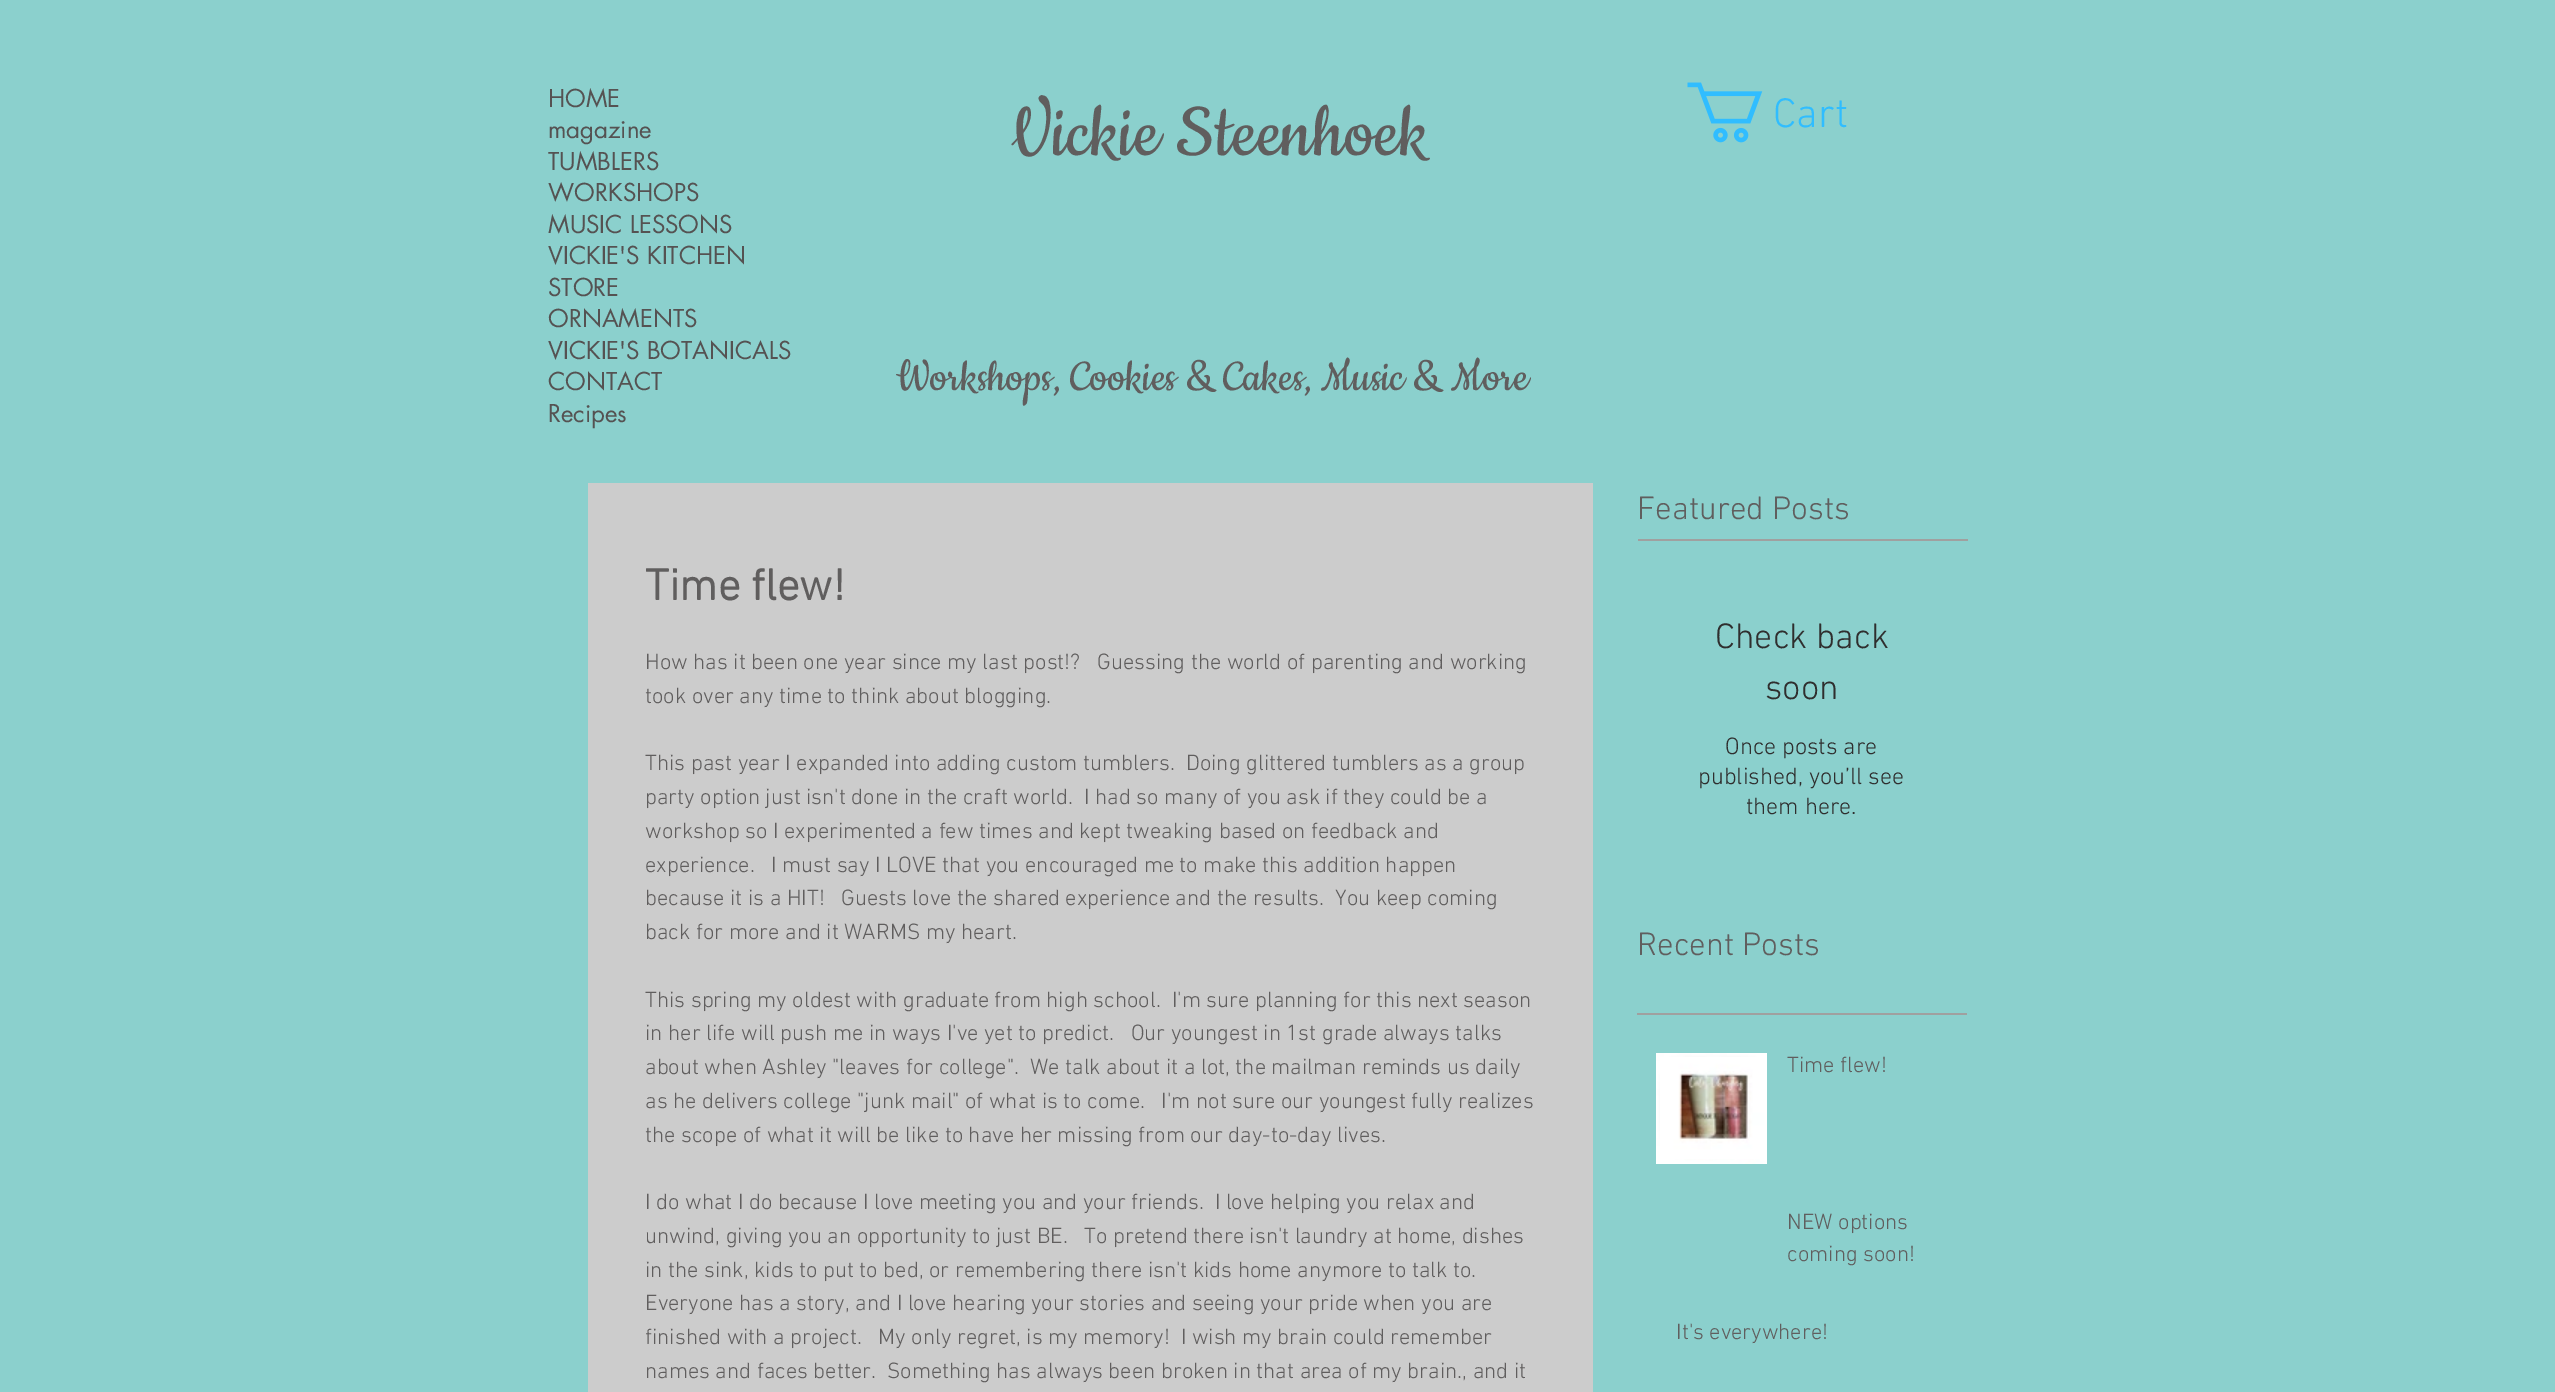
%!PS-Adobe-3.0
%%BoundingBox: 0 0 2555 1392
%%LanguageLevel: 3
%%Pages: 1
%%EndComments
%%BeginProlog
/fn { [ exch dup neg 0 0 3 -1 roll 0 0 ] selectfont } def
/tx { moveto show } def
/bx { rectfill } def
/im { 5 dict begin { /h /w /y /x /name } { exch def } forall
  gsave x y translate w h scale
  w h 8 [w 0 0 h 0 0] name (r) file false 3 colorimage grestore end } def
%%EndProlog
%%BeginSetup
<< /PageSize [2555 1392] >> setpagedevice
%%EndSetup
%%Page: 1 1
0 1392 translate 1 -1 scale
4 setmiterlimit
0.545 0.816 0.804 setrgbcolor
0 0 2555 1392 bx
/futura-Regular 24 fn
0.333 0.322 0.322 setrgbcolor
(HOME) 548 107 tx
(magazine) 548 138 tx
(TUMBLERS) 548 170 tx
(WORKSHOPS) 548 201 tx
(MUSIC LESSONS) 548 233 tx
(VICKIE'S KITCHEN) 548 264 tx
(STORE) 548 296 tx
(ORNAMENTS) 548 327 tx
(VICKIE'S BOTANICALS) 548 359 tx
(CONTACT) 548 390 tx
(Recipes) 548 422 tx
/Cookie-Regular 84 fn
0.376 0.369 0.369 setrgbcolor
(Vickie Steenhoek) 1010 155 tx
(image0.raw) 1687 82 76 61 im
/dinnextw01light-Light 42 fn
0.188 0.741 1 setrgbcolor
(Cart) 1773 127 tx
/Cookie-Regular 49.5 fn
0.376 0.369 0.369 setrgbcolor
(Workshops, Cookies & Cakes, Music & More) 896 390 tx
/dinnextw01light-Light 33 fn
(Featured Posts) 1637 519 tx
0.627 0.627 0.624 setrgbcolor
1638 539 330 2 bx
0.8 setgray
588 483 1005 909 bx
/dinnextw01light-Bold 45 fn
0.376 0.369 0.369 setrgbcolor
(Time flew!) 645 600 tx
/dinnextw01light-Light 22.5 fn
(How has it been one year since my last post!?   Guessing the world of parenting and working) 645 669 tx
(took over any time to think about blogging.) 645 703 tx
(This past year I expanded into adding custom tumblers.  Doing glittered tumblers as a group) 645 770 tx
(party option just isn't done in the craft world.  I had so many of you ask if they could be a) 645 804 tx
(workshop so I experimented a few times and kept tweaking based on feedback and) 645 838 tx
(experience.   I must say I LOVE that you encouraged me to make this addition happen) 645 872 tx
(because it is a HIT!   Guests love the shared experience and the results.  You keep coming) 645 905 tx
(back for more and it WARMS my heart.) 645 939 tx
(This spring my oldest with graduate from high school.  I'm sure planning for this next season) 645 1007 tx
(in her life will push me in ways I've yet to predict.   Our youngest in 1st grade always talks) 645 1040 tx
(about when Ashley "leaves for college".  We talk about it a lot, the mailman reminds us daily) 645 1074 tx
(as he delivers college "junk mail" of what is to come.   I'm not sure our youngest fully realizes) 645 1108 tx
(the scope of what it will be like to have her missing from our day-to-day lives.) 645 1142 tx
(I do what I do because I love meeting you and your friends.  I love helping you relax and) 645 1209 tx
(unwind, giving you an opportunity to just BE.   To pretend there isn't laundry at home, dishes) 645 1243 tx
(in the sink, kids to put to bed, or remembering there isn't kids home anymore to talk to.) 645 1277 tx
(Everyone has a story, and I love hearing your stories and seeing your pride when you are) 645 1310 tx
(finished with a project.   My only regret, is my memory!  I wish my brain could remember) 645 1344 tx
(names and faces better.  Something has always been broken in that area of my brain., and it) 645 1378 tx
/dinnextw01light-Light 36 fn
0.184 0.18 0.18 setrgbcolor
(Check back) 1715 648 tx
(soon) 1765 699 tx
/dinnextw01light-Light 24 fn
(Once posts are) 1725 754 tx
(published, you’ll see) 1698 784 tx
(them here.) 1746 814 tx
/dinnextw01light-Light 33 fn
0.376 0.369 0.369 setrgbcolor
(Recent Posts) 1637 955 tx
0.627 0.627 0.624 setrgbcolor
1637 1013 330 2 bx
(image1.raw) 1656 1053 111 111 im
(image2.raw) 1660 1057 107 102 im
/dinnextw01light-Light 22.5 fn
0.376 0.369 0.369 setrgbcolor
(Time flew!) 1787 1072 tx
(NEW options) 1787 1229 tx
(coming soon!) 1787 1261 tx
(It's everywhere!) 1676 1339 tx
showpage
%%EOF
